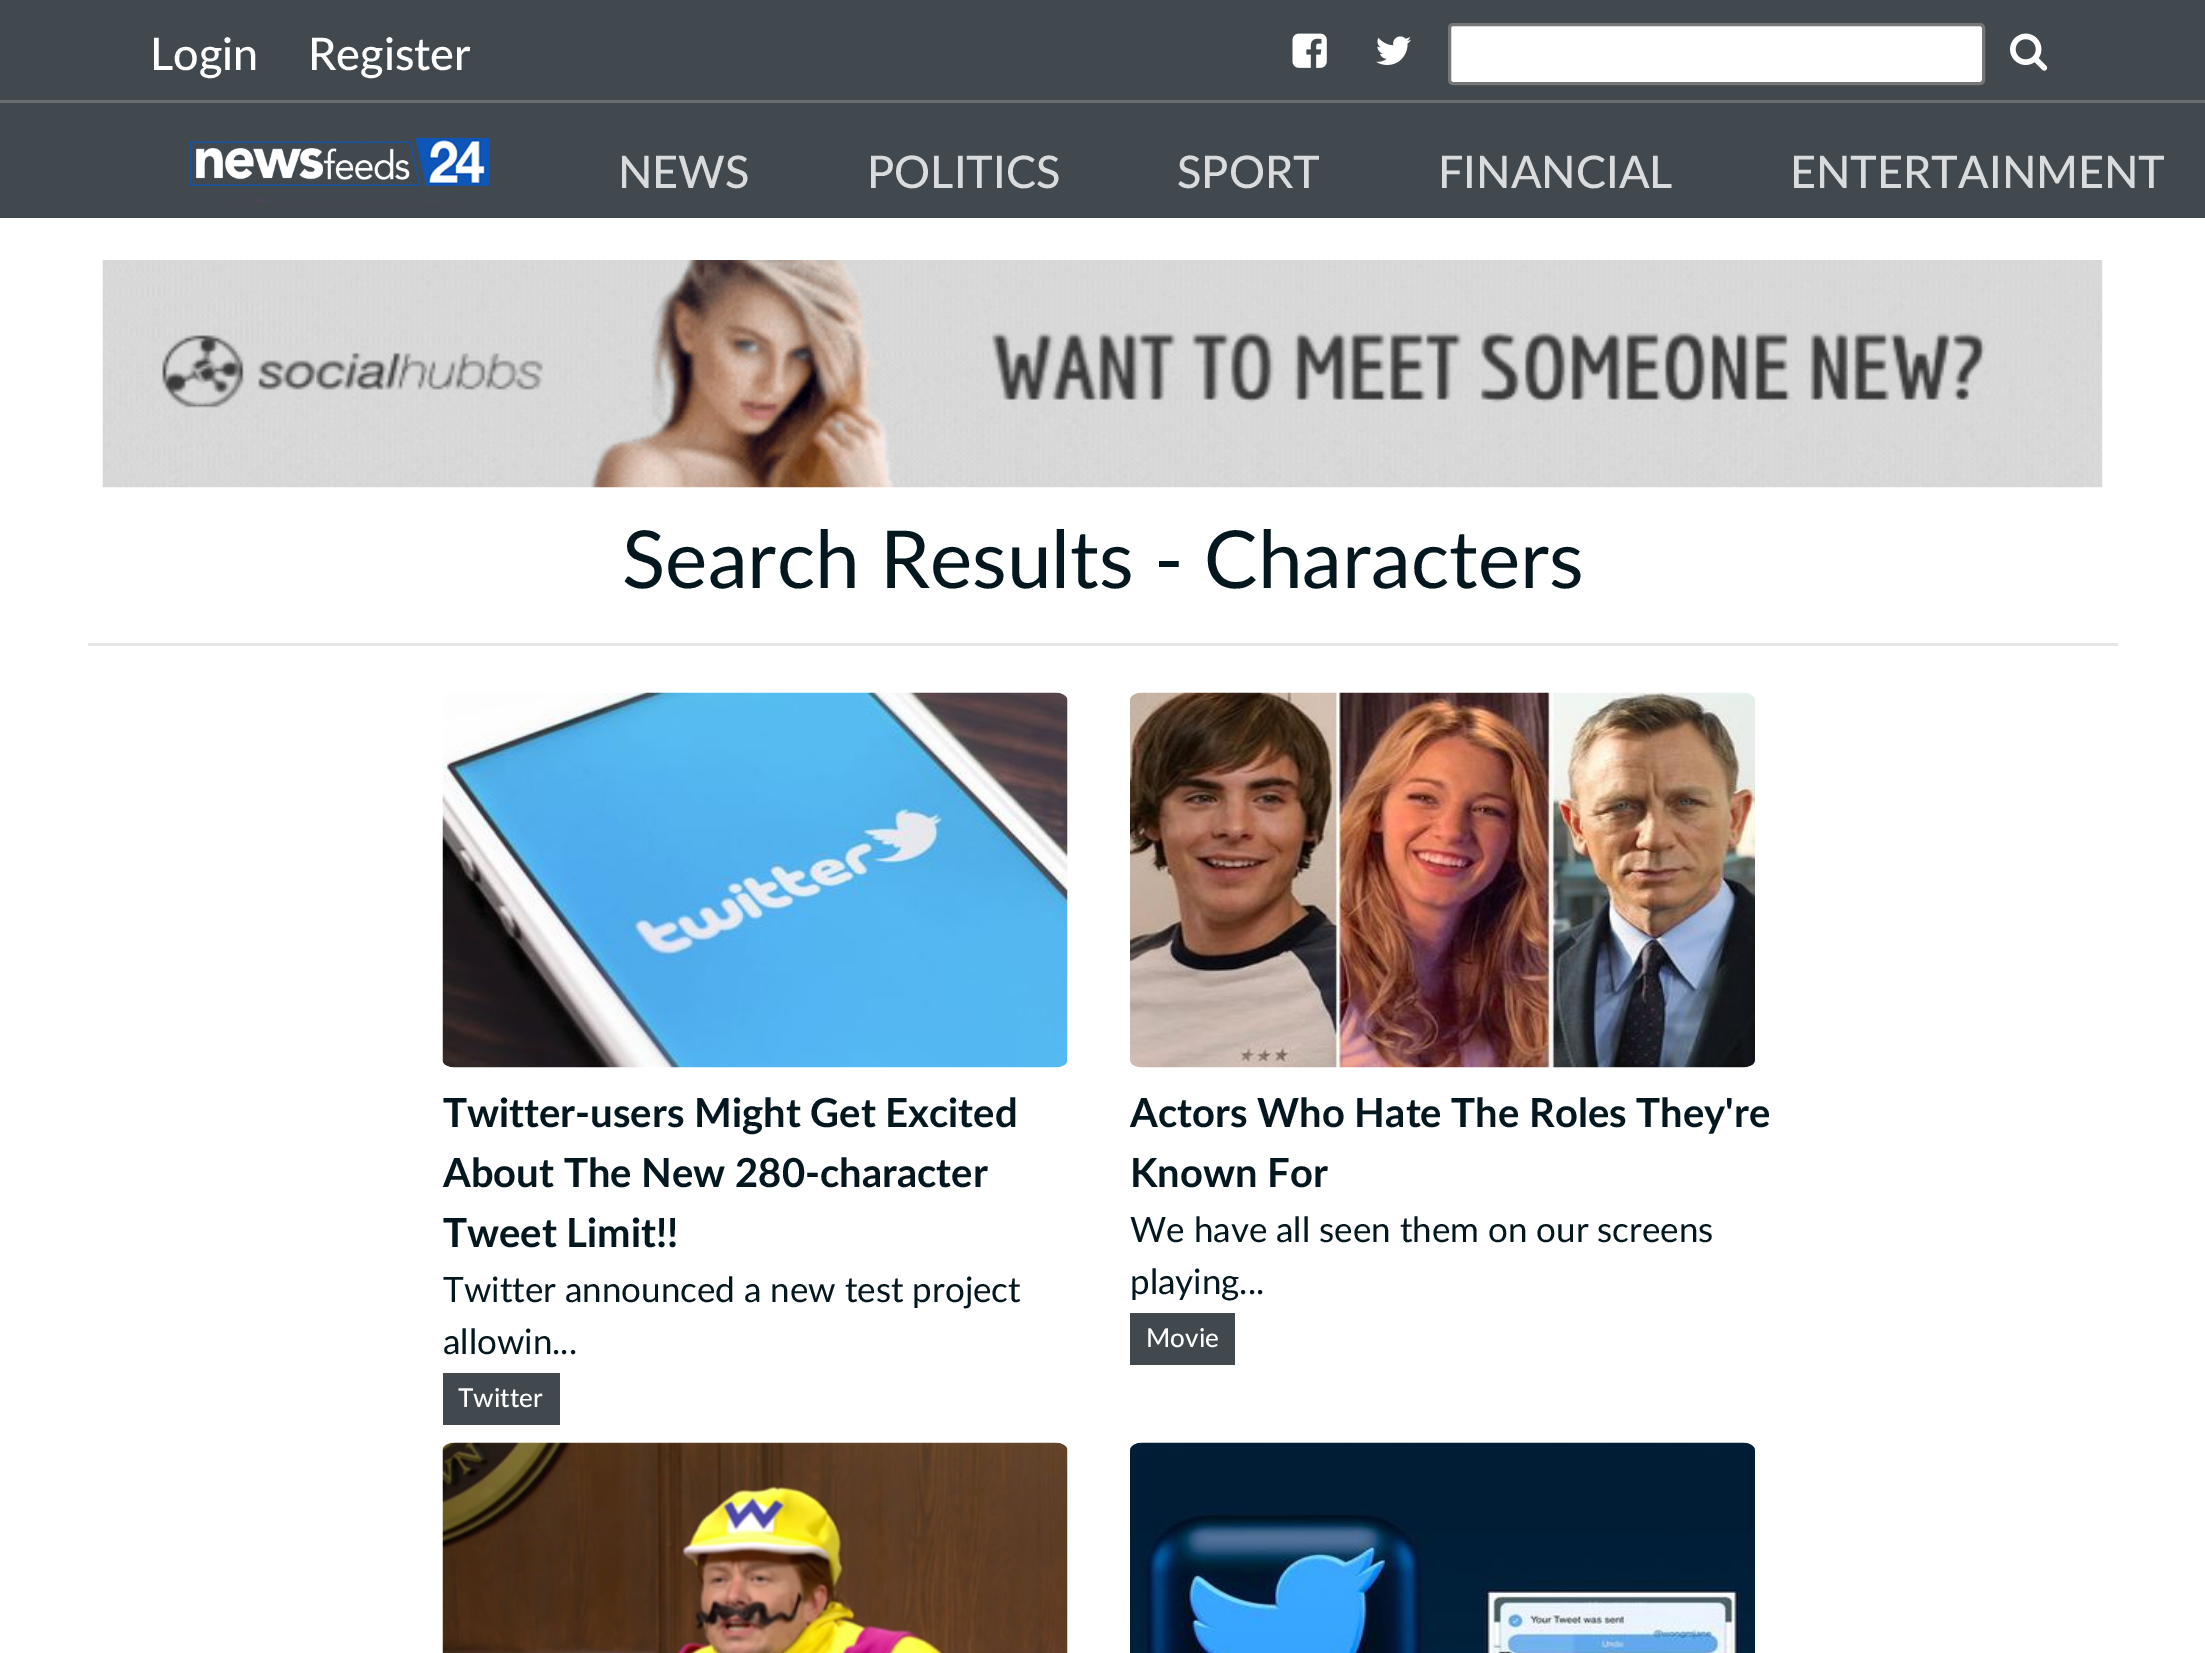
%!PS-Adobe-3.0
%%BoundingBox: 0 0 2205 1653
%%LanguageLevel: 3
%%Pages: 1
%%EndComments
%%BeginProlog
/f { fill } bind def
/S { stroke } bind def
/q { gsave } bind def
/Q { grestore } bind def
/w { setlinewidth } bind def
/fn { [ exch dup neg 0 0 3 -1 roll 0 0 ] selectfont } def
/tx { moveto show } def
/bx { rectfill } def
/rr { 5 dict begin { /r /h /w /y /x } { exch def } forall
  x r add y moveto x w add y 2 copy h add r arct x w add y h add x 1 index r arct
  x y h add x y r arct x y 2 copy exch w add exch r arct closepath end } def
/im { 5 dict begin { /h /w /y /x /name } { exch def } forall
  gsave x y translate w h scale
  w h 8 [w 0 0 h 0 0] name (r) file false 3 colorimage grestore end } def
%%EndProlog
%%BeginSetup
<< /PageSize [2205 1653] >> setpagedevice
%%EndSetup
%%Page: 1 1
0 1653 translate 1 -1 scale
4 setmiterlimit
1 setgray
0 0 2205 1653 bx
0.255 0.286 0.306 setrgbcolor
0 0 2205 100 bx
/Lato-Medium 45 fn
1 setgray
(Login) 150 70 tx
(Register) 308 70 tx
(image0.raw) 1292 33 35 35 im
(image1.raw) 1376 36 35 29 im
1449.5 24.5 534 59 3.5 rr q f Q
0.463 setgray
3 w
S
(image2.raw) 2010 33 38 38 im
0.255 0.286 0.306 setrgbcolor
0 103 2205 115 bx
0.404 0.427 0.443 setrgbcolor
0 100 2205 3 bx
(image3.raw) 190 137 300 66 im
0.851 0.859 0.863 setrgbcolor
(NEWS) 618 188 tx
(POLITICS) 867 188 tx
(SPORT) 1177 188 tx
(FINANCIAL) 1438 188 tx
(ENTERTAINMENT) 1790 188 tx
(image4.raw) 102 260 2001 228 im
/Lato-Regular 80 fn
0.02 0.09 0.118 setrgbcolor
(Search Results - Characters) 622 588 tx
0.902 setgray
88 643 2030 3 bx
(image5.raw) 442 692 626 376 im
/Lato-Bold 40 fn
0.02 0.09 0.118 setrgbcolor
(Twitter-users Might Get Excited) 443 1127 tx
(About The New 280-character) 443 1187 tx
(Tweet Limit!!) 443 1247 tx
/Lato-Regular 35 fn
(Twitter announced a new test project) 443 1302 tx
(allowin...) 443 1354 tx
0.255 0.286 0.306 setrgbcolor
443 1373 117 52 bx
/Lato-Medium 26 fn
1 setgray
(Twitter) 458 1407 tx
(image6.raw) 1130 692 625 376 im
/Lato-Bold 40 fn
0.02 0.09 0.118 setrgbcolor
(Actors Who Hate The Roles They're) 1130 1127 tx
(Known For) 1130 1187 tx
/Lato-Regular 35 fn
(We have all seen them on our screens) 1130 1242 tx
(playing...) 1130 1294 tx
0.255 0.286 0.306 setrgbcolor
1130 1313 105 52 bx
/Lato-Medium 26 fn
1 setgray
(Movie) 1146 1347 tx
(image7.raw) 442 1442 626 211 im
(image8.raw) 1130 1442 625 211 im
showpage
%%EOF
